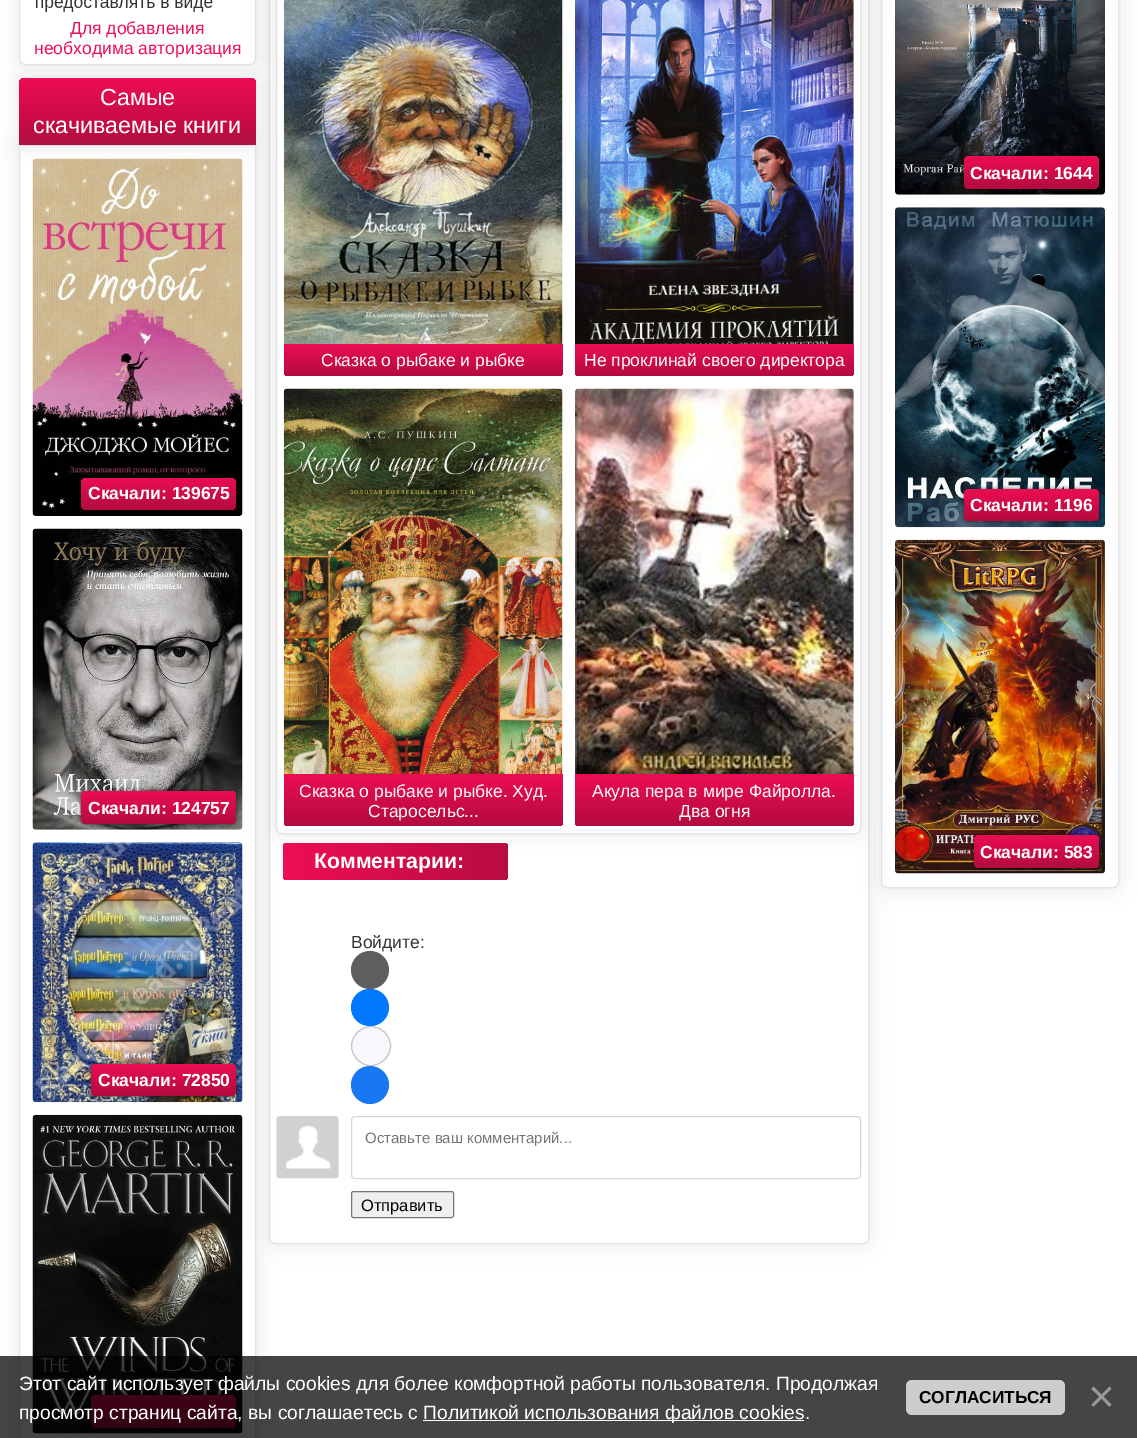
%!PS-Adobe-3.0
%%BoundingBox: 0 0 1137 1438
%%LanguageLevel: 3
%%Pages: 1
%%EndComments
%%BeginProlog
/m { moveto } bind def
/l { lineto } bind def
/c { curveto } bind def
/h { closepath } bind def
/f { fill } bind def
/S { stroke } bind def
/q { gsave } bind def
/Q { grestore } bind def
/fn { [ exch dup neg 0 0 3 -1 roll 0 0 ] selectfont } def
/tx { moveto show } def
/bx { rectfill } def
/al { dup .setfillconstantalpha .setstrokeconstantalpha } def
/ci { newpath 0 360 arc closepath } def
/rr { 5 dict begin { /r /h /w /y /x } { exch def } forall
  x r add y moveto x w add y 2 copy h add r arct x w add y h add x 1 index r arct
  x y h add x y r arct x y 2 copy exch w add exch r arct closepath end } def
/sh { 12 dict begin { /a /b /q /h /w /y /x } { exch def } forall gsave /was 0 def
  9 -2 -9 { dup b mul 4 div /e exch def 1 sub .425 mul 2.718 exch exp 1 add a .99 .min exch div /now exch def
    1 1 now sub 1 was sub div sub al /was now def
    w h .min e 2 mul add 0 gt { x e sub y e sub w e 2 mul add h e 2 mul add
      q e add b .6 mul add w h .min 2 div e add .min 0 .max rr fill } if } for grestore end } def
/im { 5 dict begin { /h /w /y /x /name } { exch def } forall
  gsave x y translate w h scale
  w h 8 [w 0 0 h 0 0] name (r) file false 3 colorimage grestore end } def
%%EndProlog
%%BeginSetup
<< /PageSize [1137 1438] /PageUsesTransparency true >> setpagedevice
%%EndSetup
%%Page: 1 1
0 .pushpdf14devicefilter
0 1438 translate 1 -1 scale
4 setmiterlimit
1 setgray
0 0 1137 1438 bx
q
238 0 m 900 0 l 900 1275 l 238 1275 l h 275 -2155 m 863 -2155 l 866.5 -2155 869 -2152.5 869 -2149 c 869 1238 l 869 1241.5 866.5 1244 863 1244 c 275 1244 l 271.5 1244 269 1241.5 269 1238 c 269 -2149 l 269 -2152.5 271.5 -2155 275 -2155 c h eoclip newpath
0.482 setgray
269 -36 600 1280 6 10 0.18 sh
Q
0.886 setgray
269.5 -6.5 599 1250 5.5 rr S
q
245 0 m 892 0 l 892 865 l 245 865 l h 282 -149 m 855 -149 l 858.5 -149 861 -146.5 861 -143 c 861 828 l 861 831.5 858.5 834 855 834 c 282 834 l 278.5 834 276 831.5 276 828 c 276 -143 l 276 -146.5 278.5 -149 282 -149 c h eoclip newpath
0.482 setgray
276 -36 585 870 6 10 0.18 sh
Q
276.5 -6.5 584 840 5.5 rr S
q
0 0 m 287 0 l 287 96 l 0 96 l h 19 -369 m 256 -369 l 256 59 l 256 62.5 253.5 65 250 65 c 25 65 l 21.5 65 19 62.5 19 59 c h eoclip newpath
0.482 setgray
19 -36 237 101 6 10 0.18 sh
Q
19.5 -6.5 m 255.5 -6.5 l 255.5 59 l 255.5 62 253 64.5 250 64.5 c 25 64.5 l 22 64.5 19.5 62 19.5 59 c h S
(image0.raw) 35 0 178 12 im
/LiberationSans-Regular 17.5 fn
0.937 0.055 0.325 setrgbcolor
(Для добавления) 70 34 tx
0.482 setgray
19 78 237 67 6 10 0.18 sh
0.937 0.055 0.325 setrgbcolor
(необходима авторизация) 34 54 tx
q 25 78 m 250 78 l 253.5 78 256 80.5 256 84 c 256 145 l 19 145 l 19 84 l 19 80.5 21.5 78 25 78 c h clip newpath
<< /ShadingType 2 /ColorSpace /DeviceRGB /Coords [138 145 138 78] /Extend [true true] /Function << /FunctionType 2 /Domain [0 1] /C0 [0.698 0.043 0.243] /C1 [0.929 0.051 0.325] /N 1 >> >> shfill Q
/LiberationSans-Regular 23.25 fn
1 setgray
(Самые) 100 105 tx
q 283 843 225 37 4 rr clip newpath
<< /ShadingType 2 /ColorSpace /DeviceRGB /Coords [283 861 508 861] /Extend [true true] /Function << /FunctionType 2 /Domain [0 1] /C0 [0.937 0.055 0.329] /C1 [0.722 0.047 0.251] /N 1 >> >> shfill Q
(image9.raw) 276 1116 63 63 im
q
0 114 m 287 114 l 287 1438 l 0 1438 l h 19 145 m 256 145 l 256 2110 l 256 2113.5 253.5 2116 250 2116 c 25 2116 l 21.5 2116 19 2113.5 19 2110 c h eoclip newpath
0.482 setgray
19 145 237 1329 6 10 0.18 sh
Q
(скачиваемые книги) 33 133 tx
0.886 setgray
19.5 145.5 236 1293 rectstroke
(image1.raw) 32 158 211 358 im
0 setgray
81 478 155 32 5 2 0.7 sh
q 81 478 155 32 5 rr clip newpath
<< /ShadingType 2 /ColorSpace /DeviceRGB /Coords [159 478 159 510] /Extend [true true] /Function << /FunctionType 2 /Domain [0 1] /C0 [0.925 0.051 0.325] /C1 [0.702 0.043 0.243] /N 1 >> >> shfill Q
/LiberationSans-Bold 17.5 fn
1 setgray
(Скачали: 139675) 88 499 tx
(image2.raw) 32 528 211 302 im
0 setgray
81 791 155 33 5 2 0.7 sh
q 81 791 155 33 5 rr clip newpath
<< /ShadingType 2 /ColorSpace /DeviceRGB /Coords [159 791 159 824] /Extend [true true] /Function << /FunctionType 2 /Domain [0 1] /C0 [0.925 0.051 0.325] /C1 [0.702 0.043 0.243] /N 1 >> >> shfill Q
1 setgray
(Скачали: 124757) 88 814 tx
(image3.raw) 32 842 211 261 im
0 setgray
91 1064 145 32 5 2 0.7 sh
q 91 1064 145 32 5 rr clip newpath
<< /ShadingType 2 /ColorSpace /DeviceRGB /Coords [164 1064 164 1096] /Extend [true true] /Function << /FunctionType 2 /Domain [0 1] /C0 [0.925 0.051 0.325] /C1 [0.702 0.043 0.243] /N 1 >> >> shfill Q
1 setgray
(Скачали: 72850) 98 1086 tx
(image4.raw) 32 1114 211 320 im
0 setgray
91 1395 145 33 5 2 0.7 sh
q 91 1395 145 33 5 rr clip newpath
<< /ShadingType 2 /ColorSpace /DeviceRGB /Coords [164 1395 164 1428] /Extend [true true] /Function << /FunctionType 2 /Domain [0 1] /C0 [0.925 0.051 0.325] /C1 [0.702 0.043 0.243] /N 1 >> >> shfill Q
(image5.raw) 283 0 280 376 im
q 284 344 m 563 344 l 563 372 l 563 374 561 376 559 376 c 288 376 l 286 376 284 374 284 372 c h clip newpath
<< /ShadingType 2 /ColorSpace /DeviceRGB /Coords [423 344 423 376] /Extend [true true] /Function << /FunctionType 2 /Domain [0 1] /C0 [0.925 0.051 0.325] /C1 [0.702 0.043 0.243] /N 1 >> >> shfill Q
/LiberationSans-Regular 17.5 fn
1 setgray
(Сказка о рыбаке и рыбке) 321 366 tx
q
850 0 m 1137 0 l 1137 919 l 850 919 l h 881 -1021 m 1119 -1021 l 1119 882 l 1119 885.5 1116.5 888 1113 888 c 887 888 l 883.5 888 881 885.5 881 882 c h eoclip newpath
0.482 setgray
881 -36 238 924 6 10 0.18 sh
Q
(image6.raw) 575 0 279 376 im
q 575 344 m 854 344 l 854 372 l 854 374 852 376 850 376 c 579 376 l 577 376 575 374 575 372 c h clip newpath
<< /ShadingType 2 /ColorSpace /DeviceRGB /Coords [714 344 714 376] /Extend [true true] /Function << /FunctionType 2 /Domain [0 1] /C0 [0.925 0.051 0.325] /C1 [0.702 0.043 0.243] /N 1 >> >> shfill Q
(Не проклинай своего директора) 584 366 tx
(image7.raw) 283 388 280 438 im
q 284 774 m 563 774 l 563 822 l 563 824 561 826 559 826 c 288 826 l 286 826 284 824 284 822 c h clip newpath
<< /ShadingType 2 /ColorSpace /DeviceRGB /Coords [423 774 423 826] /Extend [true true] /Function << /FunctionType 2 /Domain [0 1] /C0 [0.925 0.051 0.325] /C1 [0.702 0.043 0.243] /N 1 >> >> shfill Q
(Сказка о рыбаке и рыбке. Худ.) 299 797 tx
(Старосельс...) 368 817 tx
(image8.raw) 575 388 279 438 im
q 575 774 m 854 774 l 854 822 l 854 824 852 826 850 826 c 579 826 l 577 826 575 824 575 822 c h clip newpath
<< /ShadingType 2 /ColorSpace /DeviceRGB /Coords [714 774 714 826] /Extend [true true] /Function << /FunctionType 2 /Domain [0 1] /C0 [0.925 0.051 0.325] /C1 [0.702 0.043 0.243] /N 1 >> >> shfill Q
(Акула пера в мире Файролла.) 592 797 tx
(Два огня) 679 817 tx
/LiberationSans-Bold 21.25 fn
(Комментарии:) 314 868 tx
/LiberationSans-Regular 17.5 fn
0.2 setgray
(Войдите:) 351 948 tx
0.369 setgray
370 970 19 ci f
0 0.467 1 setrgbcolor
351 989 38 37 18.5 rr f
0.973 0.973 0.988 setrgbcolor
371 1046 19.5 ci q f Q
0.769 setgray
S
0.094 0.467 0.949 setrgbcolor
370 1085 19 ci f
0.839 setgray
351.5 1116.5 509 62 3.5 rr S
/LiberationSans-Regular 15 fn
0.459 setgray
(Оставьте ваш комментарий...) 365 1143 tx
0.937 setgray
351.5 1191.5 102 26 2 rr q f Q
0.463 setgray
S
/LiberationSans-Regular 16.5 fn
0 setgray
(Отправить) 361 1211 tx
0.886 setgray
881.5 -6.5 m 1118.5 -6.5 l 1118.5 882 l 1118.5 885 1116 887.5 1113 887.5 c 887 887.5 l 884 887.5 881.5 885 881.5 882 c h S
(image10.raw) 895 0 210 195 im
0 setgray
964 156 135 33 5 2 0.7 sh
q 964 156 135 33 5 rr clip newpath
<< /ShadingType 2 /ColorSpace /DeviceRGB /Coords [1031 156 1031 189] /Extend [true true] /Function << /FunctionType 2 /Domain [0 1] /C0 [0.925 0.051 0.325] /C1 [0.702 0.043 0.243] /N 1 >> >> shfill Q
/LiberationSans-Bold 17.5 fn
1 setgray
(Скачали: 1644) 970 179 tx
(image11.raw) 895 207 210 321 im
0 setgray
964 489 135 32 5 2 0.7 sh
q 964 489 135 32 5 rr clip newpath
<< /ShadingType 2 /ColorSpace /DeviceRGB /Coords [1031 489 1031 521] /Extend [true true] /Function << /FunctionType 2 /Domain [0 1] /C0 [0.925 0.051 0.325] /C1 [0.702 0.043 0.243] /N 1 >> >> shfill Q
1 setgray
(Скачали: 1196) 970 511 tx
(image12.raw) 895 539 210 335 im
0 setgray
974 835 125 33 5 2 0.7 sh
q 974 835 125 33 5 rr clip newpath
<< /ShadingType 2 /ColorSpace /DeviceRGB /Coords [1036 835 1036 868] /Extend [true true] /Function << /FunctionType 2 /Domain [0 1] /C0 [0.925 0.051 0.325] /C1 [0.702 0.043 0.243] /N 1 >> >> shfill Q
1 setgray
(Скачали: 583) 980 858 tx
0.73 al
0 setgray
0 1356 1137 82 bx
/LiberationSans-Regular 19.25 fn
1 al
1 setgray
(Этот сайт использует файлы cookies для более комфортной работы пользователя. Продолжая) 19 1390 tx
(просмотр страниц сайта, вы соглашаетесь с) 19 1419 tx
423 1420 381 1 bx
(Политикой использования файлов cookies.) 423 1419 tx
0.804 setgray
906 1380 159 35 6 rr f
/LiberationSans-Bold 17.25 fn
0 setgray
(СОГЛАСИТЬСЯ) 919 1403 tx
/LiberationSans-Regular 46 fn
0.6 setgray
(×) 1088 1412 tx
.poppdf14devicefilter showpage
%%EOF
